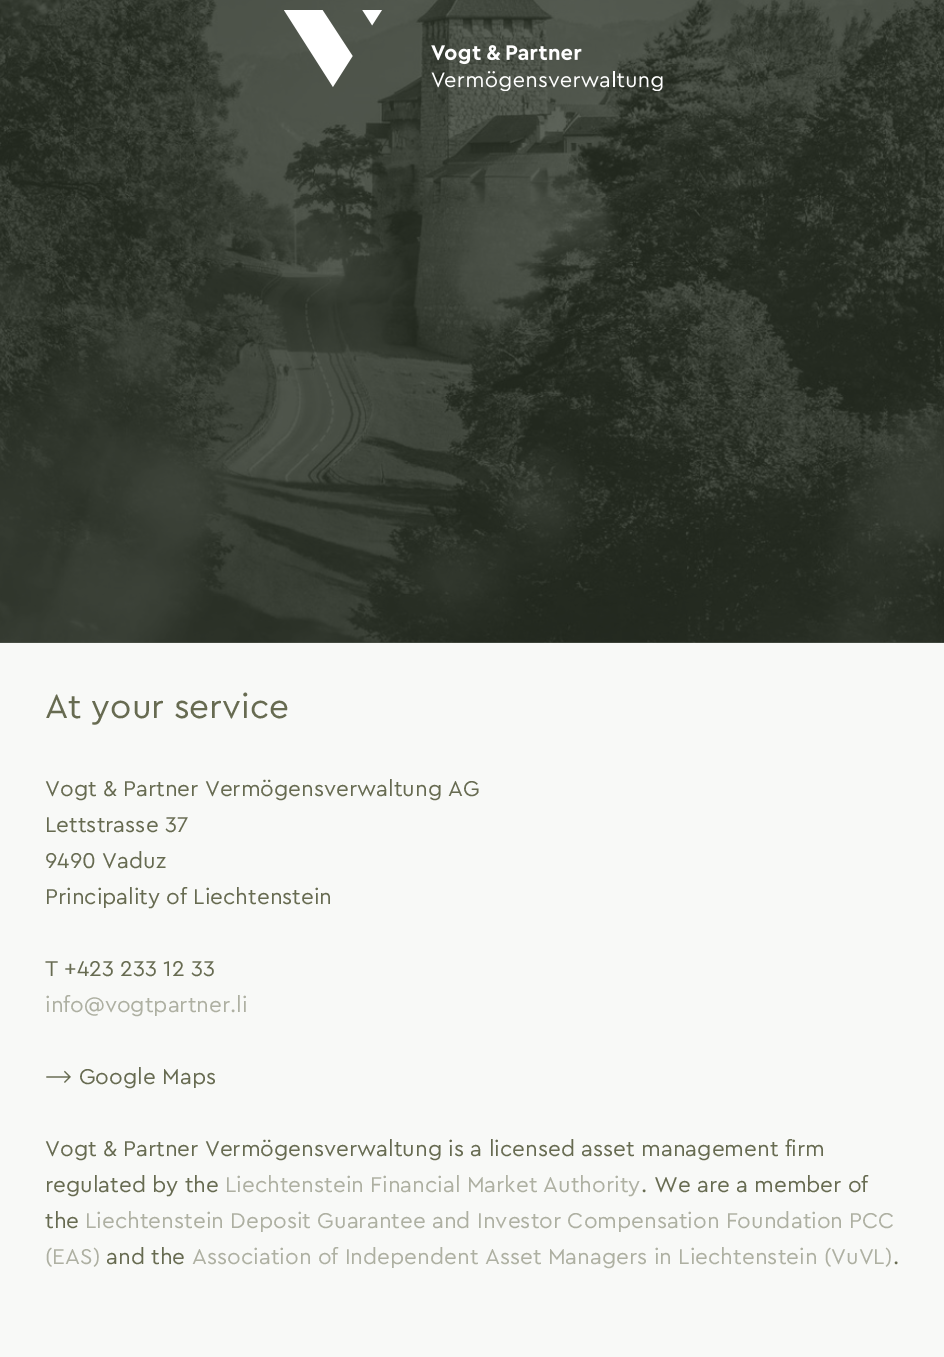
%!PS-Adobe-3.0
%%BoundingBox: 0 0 944 1357
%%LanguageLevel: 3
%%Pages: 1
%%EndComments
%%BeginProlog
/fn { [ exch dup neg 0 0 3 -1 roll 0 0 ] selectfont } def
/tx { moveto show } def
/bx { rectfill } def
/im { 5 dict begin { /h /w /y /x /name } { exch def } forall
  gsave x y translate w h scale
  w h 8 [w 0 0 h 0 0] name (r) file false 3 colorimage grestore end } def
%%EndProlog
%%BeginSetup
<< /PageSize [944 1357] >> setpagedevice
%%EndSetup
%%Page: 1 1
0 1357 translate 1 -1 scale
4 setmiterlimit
0.973 0.976 0.969 setrgbcolor
0 0 944 1357 bx
0.365 0.388 0.349 setrgbcolor
0 642 944 1 bx
(image1.raw) 0 0 944 643 im
(image0.raw) 284 10 379 81 im
/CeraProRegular-Regular 35 fn
0.404 0.42 0.318 setrgbcolor
(At your service) 45 718 tx
/CeraProRegular-Regular 22.5 fn
(Vogt & Partner Vermögensverwaltung AG) 45 796 tx
(Lettstrasse 37) 45 832 tx
(9490 Vaduz) 45 868 tx
(Principality of Liechtenstein) 45 904 tx
(T +423 233 12 33) 45 976 tx
0.682 0.69 0.635 setrgbcolor
(info@vogtpartner.li) 45 1012 tx
0.404 0.42 0.318 setrgbcolor
(⟶ Google Maps) 45 1084 tx
(Vogt & Partner Vermögensverwaltung is a licensed asset management firm) 45 1156 tx
(regulated by the) 45 1192 tx
0.682 0.69 0.635 setrgbcolor
(Liechtenstein Financial Market Authority) 225 1192 tx
0.404 0.42 0.318 setrgbcolor
(. We are a member of) 641 1192 tx
(the) 45 1228 tx
0.682 0.69 0.635 setrgbcolor
(Liechtenstein Deposit Guarantee and Investor Compensation Foundation PCC) 85 1228 tx
(\(EAS\)) 45 1264 tx
0.404 0.42 0.318 setrgbcolor
(and the) 106 1264 tx
0.682 0.69 0.635 setrgbcolor
(Association of Independent Asset Managers in Liechtenstein \(VuVL\)) 192 1264 tx
0.404 0.42 0.318 setrgbcolor
(.) 893 1264 tx
showpage
%%EOF
